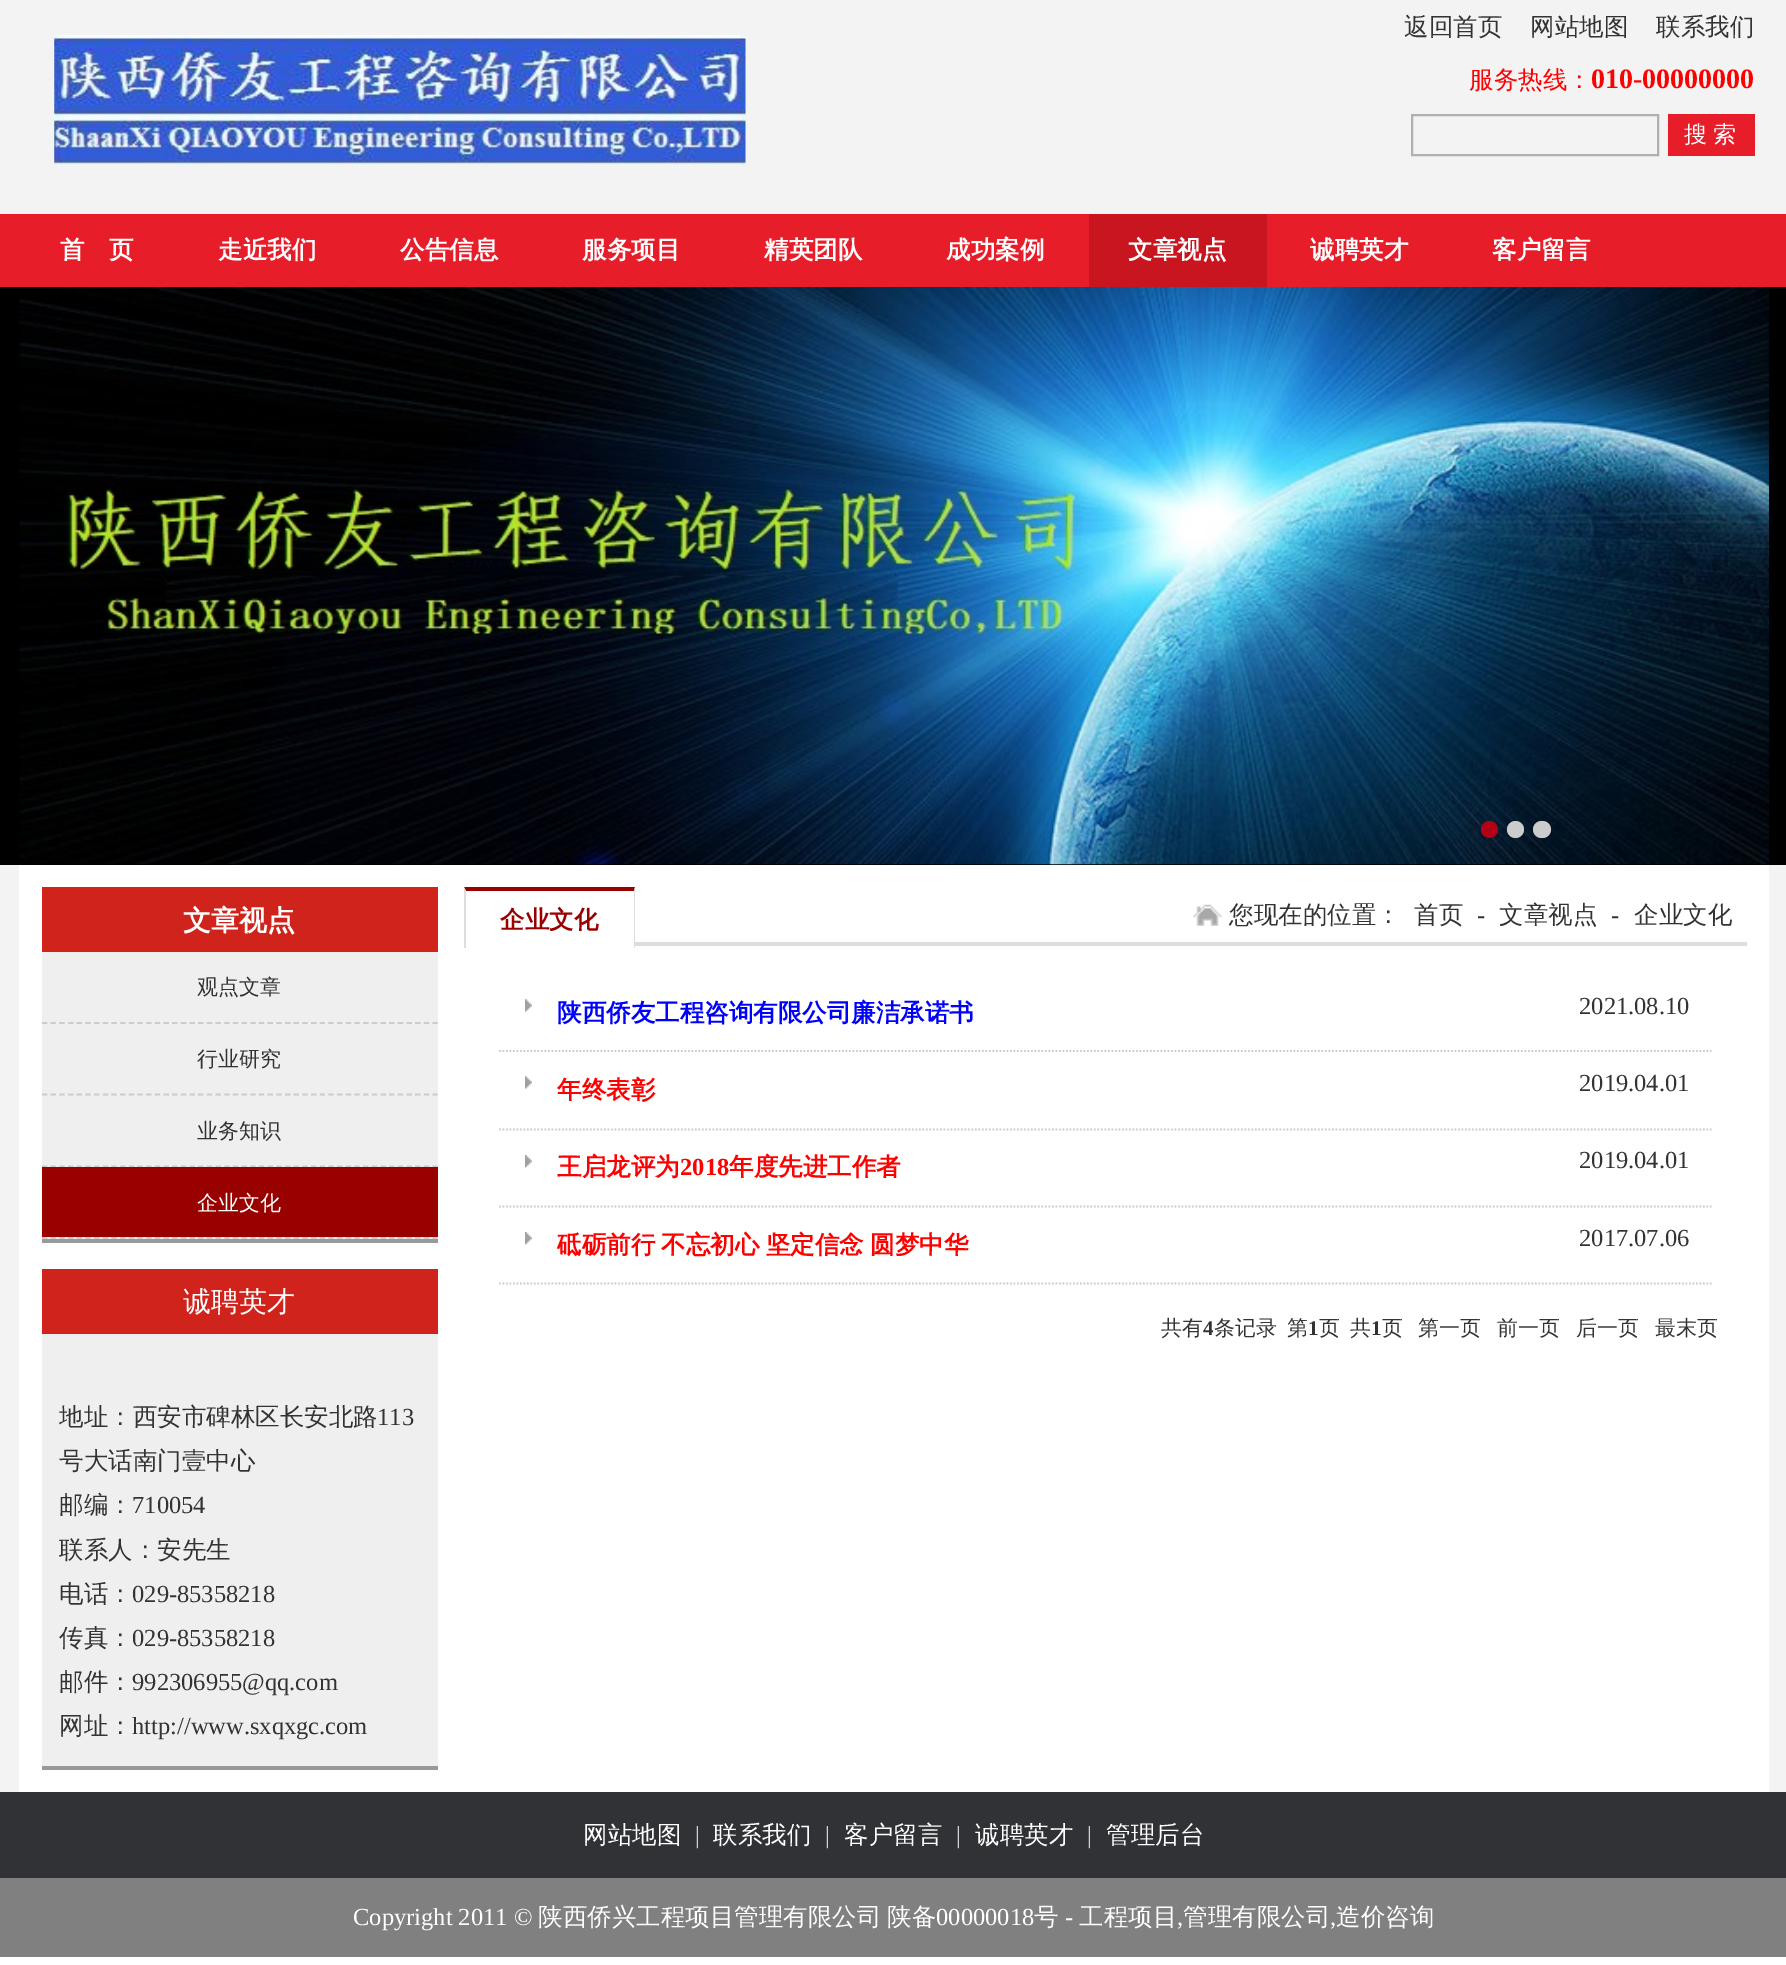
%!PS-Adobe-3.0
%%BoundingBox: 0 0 1786 1965
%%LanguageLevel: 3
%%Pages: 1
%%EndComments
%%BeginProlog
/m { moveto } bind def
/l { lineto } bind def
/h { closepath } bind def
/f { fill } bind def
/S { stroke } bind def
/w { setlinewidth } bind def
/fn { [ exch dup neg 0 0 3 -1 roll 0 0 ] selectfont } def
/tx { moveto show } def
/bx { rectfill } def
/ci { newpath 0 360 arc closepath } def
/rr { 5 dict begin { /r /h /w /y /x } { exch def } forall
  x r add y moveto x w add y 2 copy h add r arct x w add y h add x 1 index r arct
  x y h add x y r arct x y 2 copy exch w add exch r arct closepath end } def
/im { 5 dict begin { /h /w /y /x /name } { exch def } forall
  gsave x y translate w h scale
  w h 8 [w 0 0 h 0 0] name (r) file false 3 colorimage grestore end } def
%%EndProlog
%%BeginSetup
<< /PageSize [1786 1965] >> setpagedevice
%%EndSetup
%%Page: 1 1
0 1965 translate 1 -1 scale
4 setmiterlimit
1 setgray
0 0 1786 1965 bx
0.953 setgray
0 0 1786 1792 bx
(image0.raw) 54 35 692 130 im
/WenQuanYiZenHei-Medium 24.5 fn
0.2 setgray
(返回首页) 1404 35 tx
(网站地图) 1530 35 tx
(联系我们) 1656 35 tx
1 0 0 setrgbcolor
(服务热线：) 1469 88 tx
/LiberationSerif-Bold 28 fn
(010-00000000) 1591 88 tx
0.69 setgray
2 w
1412 115 246 40 rectstroke
0.906 0.114 0.161 setrgbcolor
1668 114 87 42 bx
/WenQuanYiZenHei-Medium 23 fn
1 setgray
1684 142 m -1 0 32 (搜 索) widthshow
0.906 0.114 0.161 setrgbcolor
0 214 1786 73 bx
/WenQuanYiZenHei-Bold 24.5 fn
1 setgray
(首　页) 60 258 tx
(走近我们) 218 258 tx
(公告信息) 400 258 tx
(服务项目) 582 258 tx
(精英团队) 764 258 tx
(成功案例) 946 258 tx
0.788 0.082 0.125 setrgbcolor
1089 214 178 73 bx
1 setgray
(文章视点) 1128 258 tx
(诚聘英才) 1310 258 tx
(客户留言) 1492 258 tx
0 setgray
0 287 1786 578 bx
(image1.raw) 19 287 1751 578 im
0.702 0 0.078 setrgbcolor
1489.5 829.5 8.5 ci f
0.8 setgray
1515.5 829.5 8.5 ci f
1533 821 18 17 8.5 rr f
1 setgray
19 865 1750 927 bx
0.816 0.137 0.11 setrgbcolor
42 887 396 65 bx
/WenQuanYiZenHei-Bold 28 fn
1 setgray
(文章视点) 183 930 tx
0.937 setgray
42 952 396 287 bx
0.6 setgray
42 1239 396 4 bx
0.8 setgray
1.8 w
[5.25 3.43] 0 setdash
42 1023 m 437.5 1023 l S
/WenQuanYiZenHei-Medium 21 fn
0.2 setgray
(观点文章) 197 994 tx
0.8 setgray
42 1094.5 m 437.5 1094.5 l S
0.2 setgray
(行业研究) 197 1066 tx
0.8 setgray
42 1166.5 m 437.5 1166.5 l S
0.2 setgray
(业务知识) 197 1138 tx
0.8 setgray
42 1238 m 437.5 1238 l S
0.6 0 0 setrgbcolor
42 1167 396 70 bx
1 setgray
(企业文化) 197 1210 tx
0.816 0.137 0.11 setrgbcolor
42 1269 396 65 bx
/WenQuanYiZenHei-Medium 28 fn
1 setgray
(诚聘英才) 183 1311 tx
0.937 setgray
42 1334 396 432 bx
0.6 setgray
42 1766 396 4 bx
/WenQuanYiZenHei-Medium 24.5 fn
0.2 setgray
(地址：西安市碑林区长安北路) 59 1425 tx
/LiberationSerif-Regular 24.5 fn
(113) 377 1425 tx
/WenQuanYiZenHei-Medium 24.5 fn
(号大话南门壹中心) 59 1469 tx
(邮编：) 59 1513 tx
/LiberationSerif-Regular 24.5 fn
(710054) 132 1513 tx
/WenQuanYiZenHei-Medium 24.5 fn
(联系人：安先生) 59 1558 tx
(电话：) 59 1602 tx
/LiberationSerif-Regular 24.5 fn
(029-85358218) 132 1602 tx
/WenQuanYiZenHei-Medium 24.5 fn
(传真：) 59 1646 tx
/LiberationSerif-Regular 24.5 fn
(029-85358218) 132 1646 tx
/WenQuanYiZenHei-Medium 24.5 fn
(邮件：) 59 1690 tx
/LiberationSerif-Regular 24.5 fn
(992306955@qq.com) 132 1690 tx
/WenQuanYiZenHei-Medium 24.5 fn
(网址：) 59 1734 tx
/LiberationSerif-Regular 24.5 fn
(http://www.sxqxgc.com) 132 1734 tx
0.867 setgray
635 942 1112 4 bx
0.6 0 0 setrgbcolor
464 887 m 635 887 l 634 891 l 466 891 l h f
0.867 setgray
635 887 m 635 948 l 634 948 l 634 891 l h f
464 948 m 464 887 l 466 891 l 466 948 l h f
/WenQuanYiZenHei-Bold 24.5 fn
0.6 0 0 setrgbcolor
(企业文化) 500 928 tx
(image2.raw) 1193 904 29 22 im
/WenQuanYiZenHei-Medium 24.5 fn
0.2 setgray
(您现在的位置：) 1229 923 tx
(首页) 1414 923 tx
/LiberationSerif-Regular 24.5 fn
(-) 1477 923 tx
/WenQuanYiZenHei-Medium 24.5 fn
(文章视点) 1499 923 tx
/LiberationSerif-Regular 24.5 fn
(-) 1611 923 tx
/WenQuanYiZenHei-Medium 24.5 fn
(企业文化) 1634 923 tx
0.8 setgray
[1.75 1.75] 0 setdash
499 1051 m 1711.5 1051 l S
(image3.raw) 525 999 7 13 im
/WenQuanYiZenHei-Bold 24.5 fn
0 0 1 setrgbcolor
(陕西侨友工程咨询有限公司廉洁承诺书) 557 1021 tx
/LiberationSerif-Regular 24.5 fn
0.2 setgray
(2021.08.10) 1579 1014 tx
0.8 setgray
499 1129.5 m 1711.5 1129.5 l S
(image3.raw) 525 1076 7 13 im
/WenQuanYiZenHei-Bold 24.5 fn
1 0 0 setrgbcolor
(年终表彰) 557 1098 tx
/LiberationSerif-Regular 24.5 fn
0.2 setgray
(2019.04.01) 1579 1091 tx
0.8 setgray
499 1206.5 m 1711.5 1206.5 l S
(image4.raw) 525 1155 7 13 im
/WenQuanYiZenHei-Bold 24.5 fn
1 0 0 setrgbcolor
(王启龙评为) 557 1175 tx
/LiberationSerif-Bold 24.5 fn
(2018) 680 1175 tx
/WenQuanYiZenHei-Bold 24.5 fn
(年度先进工作者) 729 1175 tx
/LiberationSerif-Regular 24.5 fn
0.2 setgray
(2019.04.01) 1579 1168 tx
0.8 setgray
499 1283.5 m 1711.5 1283.5 l S
(image4.raw) 525 1232 7 13 im
/WenQuanYiZenHei-Bold 24.5 fn
1 0 0 setrgbcolor
557 1253 m -1 0 32 (砥砺前行 不忘初心 坚定信念 圆梦中华) widthshow
/LiberationSerif-Regular 24.5 fn
0.2 setgray
(2017.07.06) 1579 1246 tx
/WenQuanYiZenHei-Medium 21 fn
(共有) 1161 1335 tx
/LiberationSerif-Bold 21 fn
(4) 1203 1335 tx
/WenQuanYiZenHei-Medium 21 fn
(条记录) 1214 1335 tx
(第) 1287 1335 tx
/LiberationSerif-Bold 21 fn
(1) 1308 1335 tx
/WenQuanYiZenHei-Medium 21 fn
(页) 1319 1335 tx
(共) 1350 1335 tx
/LiberationSerif-Bold 21 fn
(1) 1371 1335 tx
/WenQuanYiZenHei-Medium 21 fn
(页) 1382 1335 tx
(第一页) 1418 1335 tx
(前一页) 1497 1335 tx
(后一页) 1576 1335 tx
(最末页) 1655 1335 tx
0.502 setgray
0 1878 1786 79 bx
0.192 0.196 0.212 setrgbcolor
0 1792 1786 86 bx
/WenQuanYiZenHei-Medium 24.5 fn
1 setgray
(网站地图) 583 1843 tx
/LiberationSerif-Regular 24.5 fn
0.82 0.824 0.831 setrgbcolor
(|) 695 1843 tx
/WenQuanYiZenHei-Medium 24.5 fn
1 setgray
(联系我们) 713 1843 tx
/LiberationSerif-Regular 24.5 fn
0.82 0.824 0.831 setrgbcolor
(|) 825 1843 tx
/WenQuanYiZenHei-Medium 24.5 fn
1 setgray
(客户留言) 844 1843 tx
/LiberationSerif-Regular 24.5 fn
0.82 0.824 0.831 setrgbcolor
(|) 956 1843 tx
/WenQuanYiZenHei-Medium 24.5 fn
1 setgray
(诚聘英才) 975 1843 tx
/LiberationSerif-Regular 24.5 fn
0.82 0.824 0.831 setrgbcolor
(|) 1087 1843 tx
/WenQuanYiZenHei-Medium 24.5 fn
1 setgray
(管理后台) 1106 1843 tx
/LiberationSerif-Regular 24.5 fn
(Copyright 2011 ©) 353 1925 tx
/WenQuanYiZenHei-Medium 24.5 fn
(陕西侨兴工程项目管理有限公司) 538 1925 tx
(陕备) 887 1925 tx
/LiberationSerif-Regular 24.5 fn
(00000018) 936 1925 tx
/WenQuanYiZenHei-Medium 24.5 fn
(号) 1034 1925 tx
/LiberationSerif-Regular 24.5 fn
(-) 1065 1925 tx
/WenQuanYiZenHei-Medium 24.5 fn
(工程项目) 1079 1925 tx
(管理有限公司) 1183 1925 tx
(造价咨询) 1336 1925 tx
/LiberationSerif-Regular 24.5 fn
(,) 1177 1925 tx
(,) 1330 1925 tx
showpage
%%EOF
